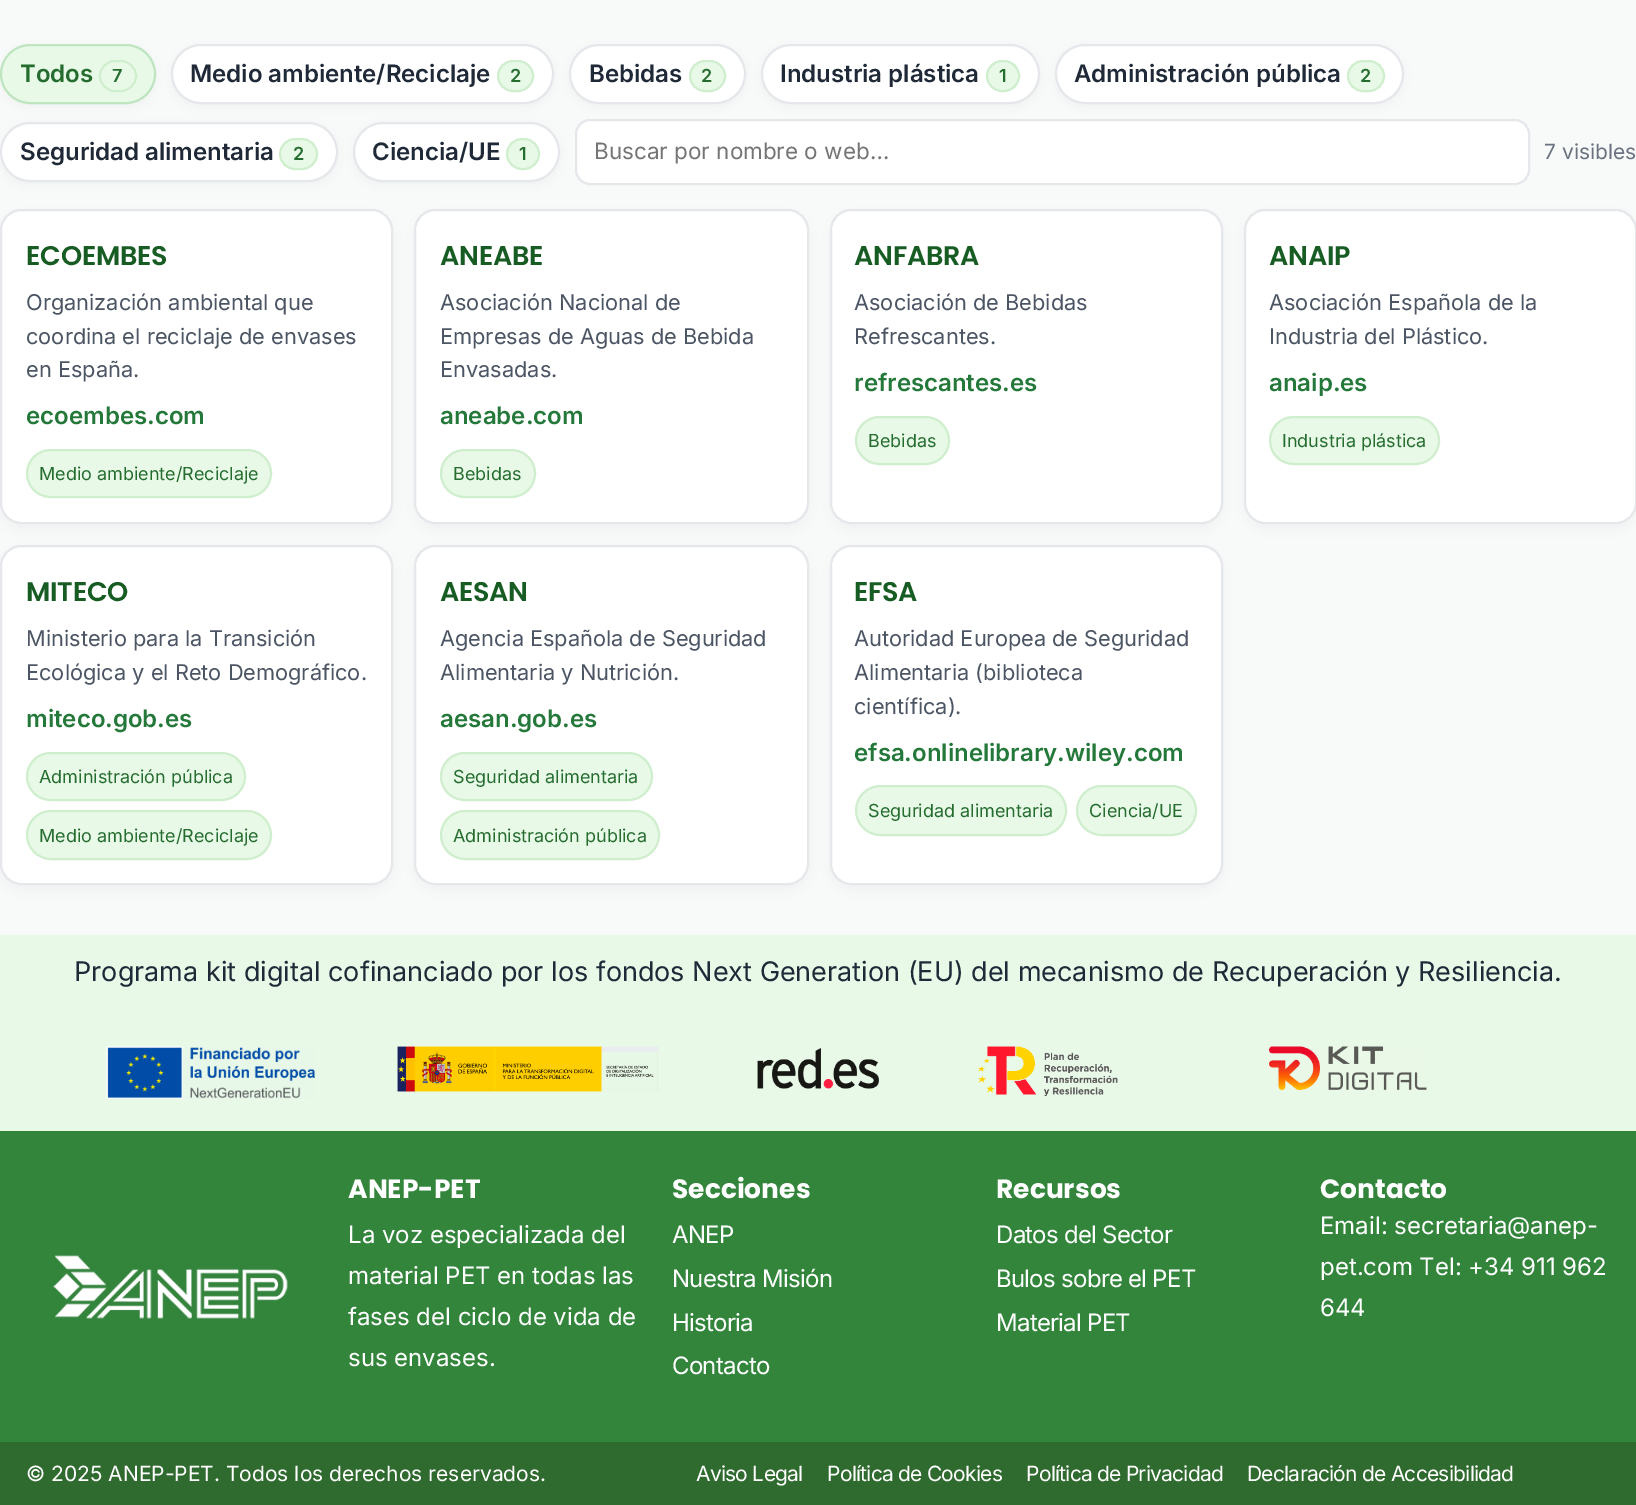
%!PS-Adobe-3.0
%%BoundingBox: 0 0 1636 1505
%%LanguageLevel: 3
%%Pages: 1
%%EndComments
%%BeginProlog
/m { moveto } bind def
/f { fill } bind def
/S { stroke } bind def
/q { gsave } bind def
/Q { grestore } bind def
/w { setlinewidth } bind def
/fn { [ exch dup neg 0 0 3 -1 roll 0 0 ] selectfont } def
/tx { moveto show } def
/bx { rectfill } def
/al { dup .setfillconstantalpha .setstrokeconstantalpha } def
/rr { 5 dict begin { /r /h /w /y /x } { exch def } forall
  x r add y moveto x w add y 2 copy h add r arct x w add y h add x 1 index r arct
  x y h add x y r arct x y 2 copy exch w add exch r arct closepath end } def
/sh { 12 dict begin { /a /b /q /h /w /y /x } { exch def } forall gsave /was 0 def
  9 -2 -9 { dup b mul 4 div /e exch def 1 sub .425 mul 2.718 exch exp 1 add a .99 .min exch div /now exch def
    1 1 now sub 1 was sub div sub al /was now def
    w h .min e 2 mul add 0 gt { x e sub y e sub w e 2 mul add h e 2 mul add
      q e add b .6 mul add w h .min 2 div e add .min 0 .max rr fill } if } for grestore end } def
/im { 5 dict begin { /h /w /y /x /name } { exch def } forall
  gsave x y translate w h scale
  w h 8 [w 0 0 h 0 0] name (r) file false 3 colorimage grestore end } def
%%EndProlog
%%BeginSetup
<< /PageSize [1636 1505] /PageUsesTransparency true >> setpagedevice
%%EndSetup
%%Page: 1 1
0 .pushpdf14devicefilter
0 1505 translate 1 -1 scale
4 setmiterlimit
0.969 0.98 0.976 setrgbcolor
0 0 1636 1505 bx
0 setgray
0 47 156 60 30 6 0.04 sh
0.914 0.976 0.91 setrgbcolor
1 45 154 58 29 rr q f Q
0.745 0.898 0.753 setrgbcolor
2 w
S
/Inter-SemiBold 24 fn
0.145 0.424 0.184 setrgbcolor
(Todos) 20 82 tx
0.812 0.933 0.804 setrgbcolor
100 61 36 30 15 rr S
/Inter-SemiBold 18 fn
0.145 0.424 0.184 setrgbcolor
(7) 112 82 tx
0 setgray
171 47 383 60 30 6 0.04 sh
1 setgray
172 45 381 58 29 rr q f Q
0.898 0.906 0.922 setrgbcolor
S
/Inter-SemiBold 24 fn
0.122 0.161 0.216 setrgbcolor
(Medio ambiente/Reciclaje) 190 82 tx
0.914 0.976 0.91 setrgbcolor
498 61 35 30 15 rr q f Q
0.812 0.933 0.804 setrgbcolor
S
/Inter-SemiBold 18 fn
0.145 0.424 0.184 setrgbcolor
(2) 510 82 tx
0 setgray
569 47 177 60 30 6 0.04 sh
1 setgray
570 45 175 58 29 rr q f Q
0.898 0.906 0.922 setrgbcolor
S
/Inter-SemiBold 24 fn
0.122 0.161 0.216 setrgbcolor
(Bebidas) 589 82 tx
0.914 0.976 0.91 setrgbcolor
690 61 35 30 15 rr q f Q
0.812 0.933 0.804 setrgbcolor
S
/Inter-SemiBold 18 fn
0.145 0.424 0.184 setrgbcolor
(2) 701 82 tx
0 setgray
761 47 279 60 30 6 0.04 sh
1 setgray
762 45 277 58 29 rr q f Q
0.898 0.906 0.922 setrgbcolor
S
/Inter-SemiBold 24 fn
0.122 0.161 0.216 setrgbcolor
(Industria plástica) 780 82 tx
0.914 0.976 0.91 setrgbcolor
987 61 32 30 15 rr q f Q
0.812 0.933 0.804 setrgbcolor
S
/Inter-SemiBold 18 fn
0.145 0.424 0.184 setrgbcolor
(1) 999 82 tx
0 setgray
1055 47 349 60 30 6 0.04 sh
1 setgray
1056 45 347 58 29 rr q f Q
0.898 0.906 0.922 setrgbcolor
S
/Inter-SemiBold 24 fn
0.122 0.161 0.216 setrgbcolor
(Administración pública) 1074 82 tx
0.914 0.976 0.91 setrgbcolor
1348 61 36 30 15 rr q f Q
0.812 0.933 0.804 setrgbcolor
S
/Inter-SemiBold 18 fn
0.145 0.424 0.184 setrgbcolor
(2) 1360 82 tx
0 setgray
0 125 338 60 30 6 0.04 sh
1 setgray
1 123 336 58 29 rr q f Q
0.898 0.906 0.922 setrgbcolor
S
/Inter-SemiBold 24 fn
0.122 0.161 0.216 setrgbcolor
(Seguridad alimentaria) 20 160 tx
0.914 0.976 0.91 setrgbcolor
280 139 37 30 15 rr q f Q
0.812 0.933 0.804 setrgbcolor
S
/Inter-SemiBold 18 fn
0.145 0.424 0.184 setrgbcolor
(2) 293 160 tx
0 setgray
353 125 207 60 30 6 0.04 sh
1 setgray
354 123 205 58 29 rr q f Q
0.898 0.906 0.922 setrgbcolor
S
/Inter-SemiBold 24 fn
0.122 0.161 0.216 setrgbcolor
(Ciencia/UE) 372 160 tx
0.914 0.976 0.91 setrgbcolor
507 139 32 30 15 rr q f Q
0.812 0.933 0.804 setrgbcolor
S
/Inter-SemiBold 18 fn
0.145 0.424 0.184 setrgbcolor
(1) 519 160 tx
1 setgray
576 120 953 64 14 rr q f Q
0.898 0.906 0.922 setrgbcolor
S
/Inter-Regular 22.5 fn
0.459 setgray
(Buscar por nombre o web…) 594 159 tx
/Inter-Regular 21 fn
0.42 0.447 0.502 setrgbcolor
(7 visibles) 1544 159 tx
0 setgray
0 215 393 315 21 7.5 0.04 sh
1 setgray
1 210 391 313 20 rr q f Q
0.898 0.906 0.922 setrgbcolor
S
/Poppins-SemiBold 27 fn
0.086 0.361 0.137 setrgbcolor
26 265 m -0.25 0 (ECOEMBES) ashow
/Inter-Regular 21.75 fn
0.294 0.333 0.388 setrgbcolor
(Organización ambiental que) 26 310 tx
(coordina el reciclaje de envases) 26 344 tx
(en España.) 26 377 tx
/Inter-SemiBold 24 fn
0.137 0.471 0.227 setrgbcolor
(ecoembes.com) 26 424 tx
0.914 0.976 0.91 setrgbcolor
27 450 244 47 23.5 rr q f Q
0.812 0.933 0.804 setrgbcolor
S
/Inter-Regular 18 fn
0.145 0.424 0.184 setrgbcolor
(Medio ambiente/Reciclaje) 39 480 tx
0 setgray
414 215 395 315 21 7.5 0.04 sh
1 setgray
415 210 393 313 20 rr q f Q
0.898 0.906 0.922 setrgbcolor
S
/Poppins-SemiBold 27 fn
0.086 0.361 0.137 setrgbcolor
440 265 m -0.25 0 (ANEABE) ashow
/Inter-Regular 21.75 fn
0.294 0.333 0.388 setrgbcolor
(Asociación Nacional de) 440 310 tx
(Empresas de Aguas de Bebida) 440 344 tx
(Envasadas.) 440 377 tx
/Inter-SemiBold 24 fn
0.137 0.471 0.227 setrgbcolor
(aneabe.com) 440 424 tx
0.914 0.976 0.91 setrgbcolor
441 450 94 47 23.5 rr q f Q
0.812 0.933 0.804 setrgbcolor
S
/Inter-Regular 18 fn
0.145 0.424 0.184 setrgbcolor
(Bebidas) 453 480 tx
0 setgray
830 215 393 315 21 7.5 0.04 sh
1 setgray
831 210 391 313 20 rr q f Q
0.898 0.906 0.922 setrgbcolor
S
/Poppins-SemiBold 27 fn
0.086 0.361 0.137 setrgbcolor
854 265 m -0.25 0 (ANFABRA) ashow
/Inter-Regular 21.75 fn
0.294 0.333 0.388 setrgbcolor
(Asociación de Bebidas) 854 310 tx
(Refrescantes.) 854 344 tx
/Inter-SemiBold 24 fn
0.137 0.471 0.227 setrgbcolor
(refrescantes.es) 854 391 tx
0.914 0.976 0.91 setrgbcolor
856 417 93 47 23.5 rr q f Q
0.812 0.933 0.804 setrgbcolor
S
/Inter-Regular 18 fn
0.145 0.424 0.184 setrgbcolor
(Bebidas) 868 447 tx
0 setgray
1244 215 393 315 21 7.5 0.04 sh
1 setgray
1245 210 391 313 20 rr q f Q
0.898 0.906 0.922 setrgbcolor
S
/Poppins-SemiBold 27 fn
0.086 0.361 0.137 setrgbcolor
1269 265 m -0.25 0 (ANAIP) ashow
/Inter-Regular 21.75 fn
0.294 0.333 0.388 setrgbcolor
(Asociación Española de la) 1269 310 tx
(Industria del Plástico.) 1269 344 tx
/Inter-SemiBold 24 fn
0.137 0.471 0.227 setrgbcolor
(anaip.es) 1269 391 tx
0.914 0.976 0.91 setrgbcolor
1270 417 169 47 23.5 rr q f Q
0.812 0.933 0.804 setrgbcolor
S
/Inter-Regular 18 fn
0.145 0.424 0.184 setrgbcolor
(Industria plástica) 1282 447 tx
0 setgray
0 551 393 340 21 7.5 0.04 sh
1 setgray
1 546 391 338 20 rr q f Q
0.898 0.906 0.922 setrgbcolor
S
/Poppins-SemiBold 27 fn
0.086 0.361 0.137 setrgbcolor
26 601 m -0.25 0 (MITECO) ashow
/Inter-Regular 21.75 fn
0.294 0.333 0.388 setrgbcolor
(Ministerio para la Transición) 26 646 tx
(Ecológica y el Reto Demográfico.) 26 680 tx
/Inter-SemiBold 24 fn
0.137 0.471 0.227 setrgbcolor
(miteco.gob.es) 26 727 tx
0.914 0.976 0.91 setrgbcolor
27 753 218 47 23.5 rr q f Q
0.812 0.933 0.804 setrgbcolor
S
/Inter-Regular 18 fn
0.145 0.424 0.184 setrgbcolor
(Administración pública) 39 783 tx
0.914 0.976 0.91 setrgbcolor
27 811 244 48 24 rr q f Q
0.812 0.933 0.804 setrgbcolor
S
0.145 0.424 0.184 setrgbcolor
(Medio ambiente/Reciclaje) 39 842 tx
0 setgray
414 551 395 340 21 7.5 0.04 sh
1 setgray
415 546 393 338 20 rr q f Q
0.898 0.906 0.922 setrgbcolor
S
/Poppins-SemiBold 27 fn
0.086 0.361 0.137 setrgbcolor
440 601 m -0.25 0 (AESAN) ashow
/Inter-Regular 21.75 fn
0.294 0.333 0.388 setrgbcolor
(Agencia Española de Seguridad) 440 646 tx
(Alimentaria y Nutrición.) 440 680 tx
/Inter-SemiBold 24 fn
0.137 0.471 0.227 setrgbcolor
(aesan.gob.es) 440 727 tx
0.914 0.976 0.91 setrgbcolor
441 753 211 47 23.5 rr q f Q
0.812 0.933 0.804 setrgbcolor
S
/Inter-Regular 18 fn
0.145 0.424 0.184 setrgbcolor
(Seguridad alimentaria) 453 783 tx
0.914 0.976 0.91 setrgbcolor
441 811 218 48 24 rr q f Q
0.812 0.933 0.804 setrgbcolor
S
0.145 0.424 0.184 setrgbcolor
(Administración pública) 453 842 tx
0 setgray
830 551 393 340 21 7.5 0.04 sh
1 setgray
831 546 391 338 20 rr q f Q
0.898 0.906 0.922 setrgbcolor
S
/Poppins-SemiBold 27 fn
0.086 0.361 0.137 setrgbcolor
854 601 m -0.25 0 (EFSA) ashow
/Inter-Regular 21.75 fn
0.294 0.333 0.388 setrgbcolor
(Autoridad Europea de Seguridad) 854 646 tx
(Alimentaria \(biblioteca) 854 680 tx
(científica\).) 854 714 tx
/Inter-SemiBold 24 fn
0.137 0.471 0.227 setrgbcolor
(efsa.onlinelibrary.wiley.com) 854 761 tx
0.914 0.976 0.91 setrgbcolor
856 786 210 49 24.5 rr q f Q
0.812 0.933 0.804 setrgbcolor
S
/Inter-Regular 18 fn
0.145 0.424 0.184 setrgbcolor
(Seguridad alimentaria) 868 817 tx
0.914 0.976 0.91 setrgbcolor
1077 786 119 49 24.5 rr q f Q
0.812 0.933 0.804 setrgbcolor
S
0.145 0.424 0.184 setrgbcolor
(Ciencia/UE) 1089 817 tx
0.914 0.976 0.91 setrgbcolor
0 935 1636 196 bx
/Inter-Regular 27 fn
0.122 0.161 0.216 setrgbcolor
(Programa kit digital cofinanciado por los fondos Next Generation \(EU\) del mecanismo de Recuperación y Resiliencia.) 74 981 tx
(image0.raw) 106 1046 209 53 im
(image1.raw) 397 1046 262 46 im
(image2.raw) 757 1048 122 41 im
(image3.raw) 978 1046 140 50 im
(image4.raw) 1269 1046 158 44 im
0.196 0.522 0.231 setrgbcolor
0 1131 1636 311 bx
(image5.raw) 53 1255 235 64 im
/Poppins-Bold 26.5 fn
1 setgray
(ANEP-PET) 348 1198 tx
/Inter-Regular 24 fn
(La voz especializada del) 348 1243 tx
(material PET en todas las) 348 1284 tx
(fases del ciclo de vida de) 348 1325 tx
(sus envases.) 348 1366 tx
/Poppins-Bold 26.5 fn
(Secciones) 672 1198 tx
/Inter-Regular 24 fn
672 1243 m -0.75 0 (ANEP) ashow
672 1287 m -0.75 0 (Nuestra Misión) ashow
672 1331 m -0.75 0 (Historia) ashow
672 1374 m -0.75 0 (Contacto) ashow
/Poppins-Bold 26.5 fn
(Recursos) 996 1198 tx
/Inter-Regular 24 fn
996 1243 m -0.75 0 (Datos del Sector) ashow
996 1287 m -0.75 0 (Bulos sobre el PET) ashow
996 1331 m -0.75 0 (Material PET) ashow
/Poppins-Bold 26.5 fn
(Contacto) 1320 1198 tx
/Inter-Regular 24 fn
(Email: secretaria@anep-) 1320 1234 tx
(pet.com Tel: +34 911 962) 1320 1275 tx
(644) 1320 1316 tx
0.184 0.416 0.18 setrgbcolor
0 1442 1636 63 bx
/Inter-Regular 21 fn
1 setgray
(© 2025 ANEP-PET. Todos los derechos reservados.) 26 1481 tx
696 1481 m -0.75 0 (Aviso Legal) ashow
827 1481 m -0.75 0 (Política de Cookies) ashow
1026 1481 m -0.75 0 (Política de Privacidad) ashow
1247 1481 m -0.75 0 (Declaración de Accesibilidad) ashow
.poppdf14devicefilter showpage
%%EOF
